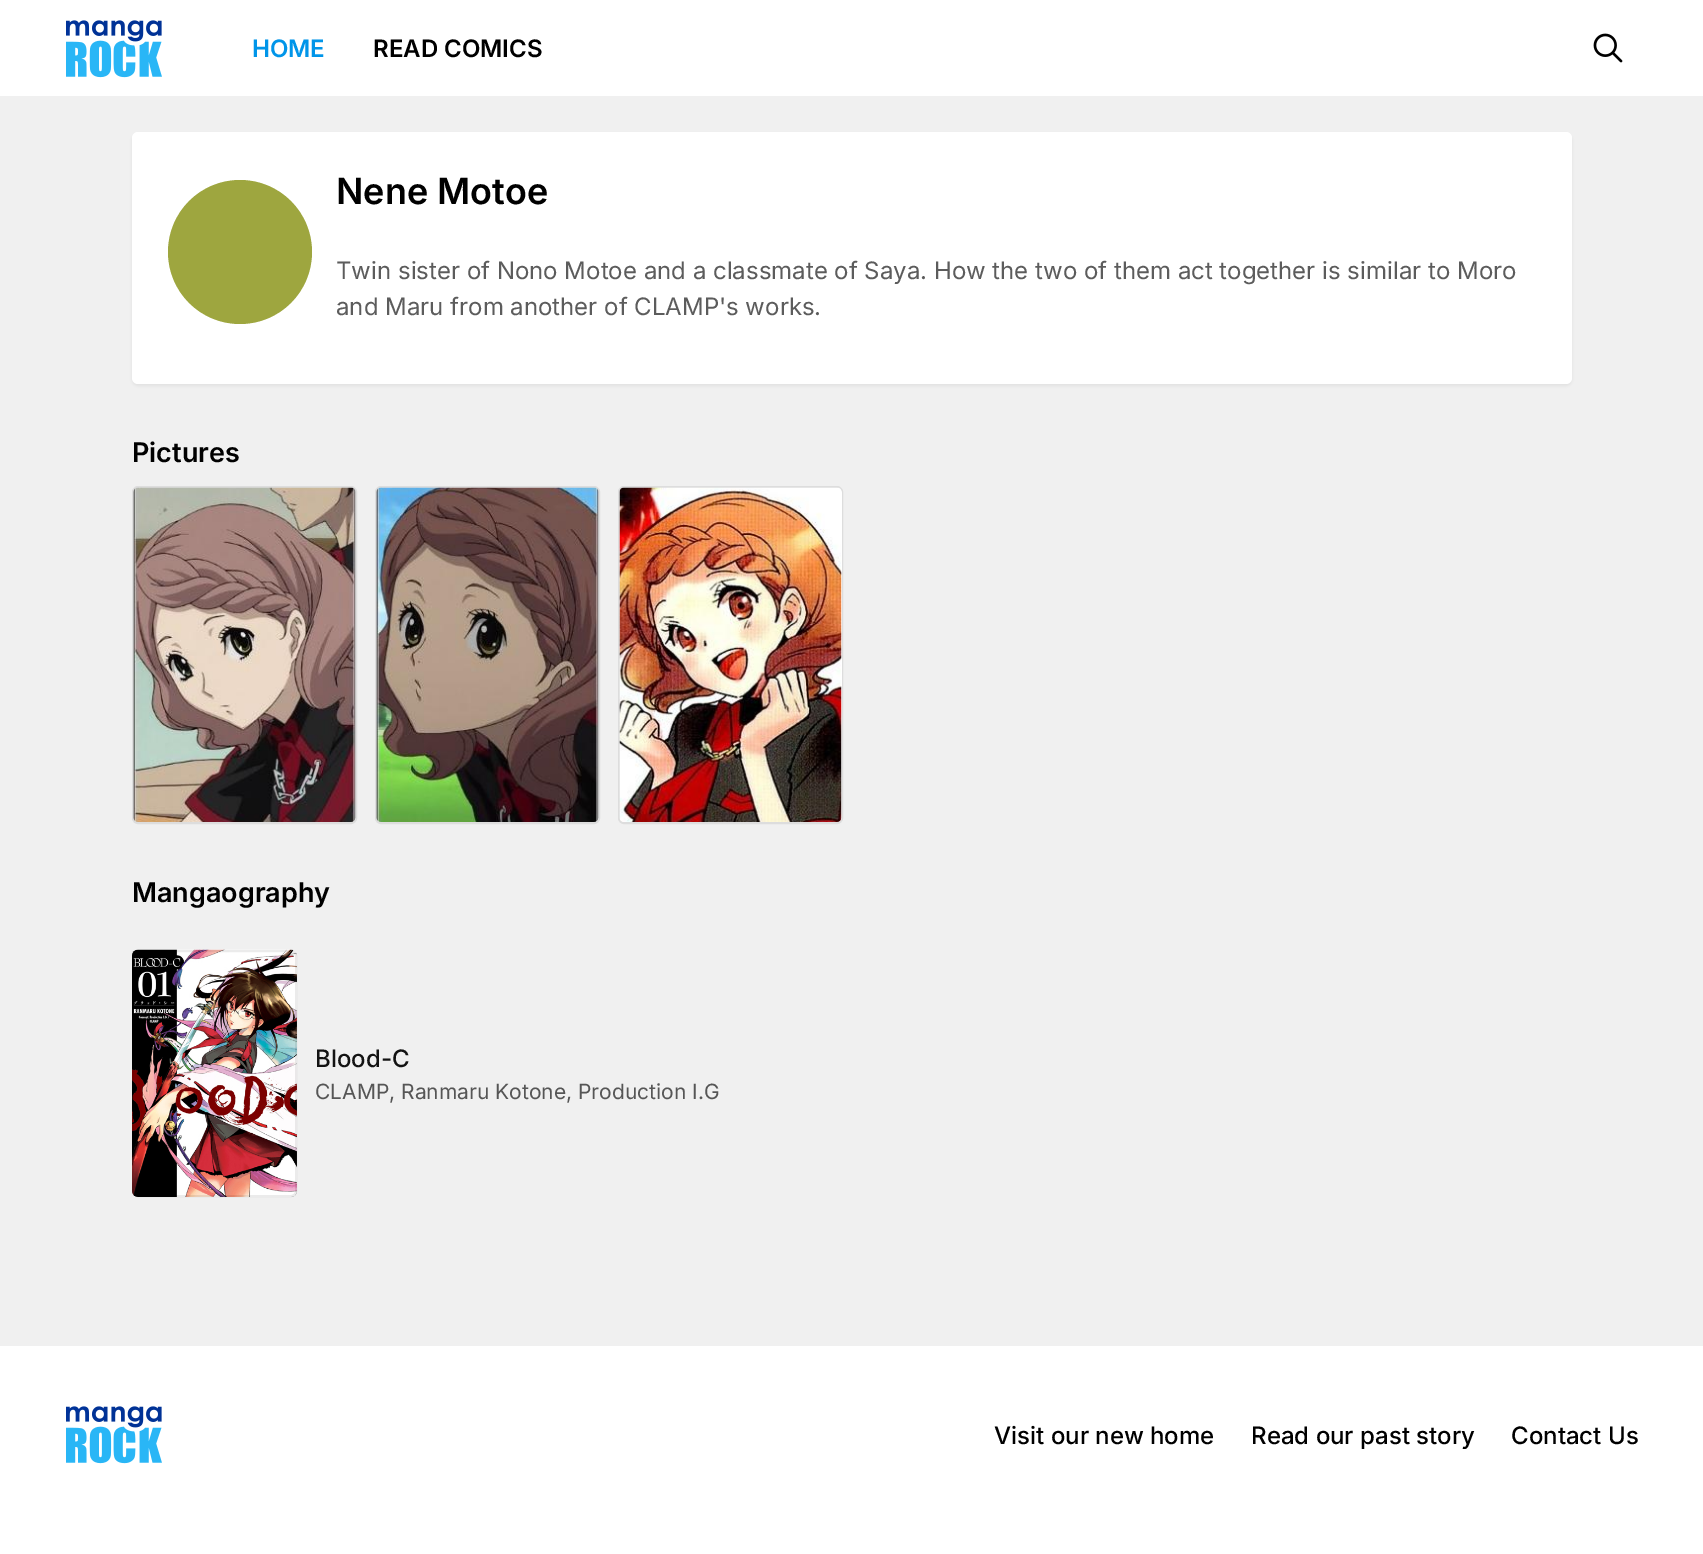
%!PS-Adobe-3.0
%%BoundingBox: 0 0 1703 1554
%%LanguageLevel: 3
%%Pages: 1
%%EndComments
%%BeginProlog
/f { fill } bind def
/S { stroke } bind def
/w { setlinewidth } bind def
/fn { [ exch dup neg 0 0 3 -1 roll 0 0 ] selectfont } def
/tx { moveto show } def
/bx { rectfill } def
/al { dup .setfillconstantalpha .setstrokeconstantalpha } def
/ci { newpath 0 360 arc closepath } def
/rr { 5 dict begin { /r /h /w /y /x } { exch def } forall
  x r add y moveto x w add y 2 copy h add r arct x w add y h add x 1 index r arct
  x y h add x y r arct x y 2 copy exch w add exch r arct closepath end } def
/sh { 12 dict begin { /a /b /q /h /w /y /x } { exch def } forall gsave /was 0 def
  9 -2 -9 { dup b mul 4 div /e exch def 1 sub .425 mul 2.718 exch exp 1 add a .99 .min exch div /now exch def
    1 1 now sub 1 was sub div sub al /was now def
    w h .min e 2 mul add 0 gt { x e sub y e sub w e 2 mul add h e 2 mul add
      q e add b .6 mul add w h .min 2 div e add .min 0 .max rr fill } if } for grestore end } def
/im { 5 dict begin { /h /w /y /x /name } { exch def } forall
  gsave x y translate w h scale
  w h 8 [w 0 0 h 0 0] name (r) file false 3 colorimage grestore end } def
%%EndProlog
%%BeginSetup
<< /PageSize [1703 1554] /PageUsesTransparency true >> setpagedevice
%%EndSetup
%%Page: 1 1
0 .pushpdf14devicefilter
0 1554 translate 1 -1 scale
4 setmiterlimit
1 setgray
0 0 1703 1554 bx
(image0.raw) 66 20 96 58 im
/Inter-SemiBold 24 fn
0 0.584 0.914 setrgbcolor
(HOME) 252 57 tx
0 setgray
(READ COMICS) 373 57 tx
(image1.raw) 1593 33 30 30 im
0.941 setgray
0 96 1703 1250 bx
0 setgray
132 134 1440 252 6 1.5 0.05 sh
1 setgray
132 132 1440 252 6 rr f
0.62 0.651 0.247 setrgbcolor
240 252 72 ci f
/Inter-SemiBold 36 fn
0 setgray
(Nene Motoe) 336 204 tx
/Inter-Regular 24 fn
0.361 setgray
(Twin sister of Nono Motoe and a classmate of Saya. How the two of them act together is similar to Moro) 336 279 tx
(and Maru from another of CLAMP's works.) 336 315 tx
/Inter-SemiBold 27 fn
0 setgray
(Pictures) 132 462 tx
0.867 setgray
2 w
133 487 223 336 5 rr S
1 setgray
134 488 222 334 5 rr f
(image2.raw) 133 487 223 335 im
0.867 setgray
376 487 223 336 5 rr S
1 setgray
377 488 222 334 5 rr f
(image3.raw) 376 487 223 335 im
0.867 setgray
619 487 223 336 5 rr S
1 setgray
620 488 222 334 5 rr f
(image4.raw) 619 487 223 335 im
0 setgray
(Mangaography) 132 902 tx
(image5.raw) 132 949 165 248 im
0.08 al
133 951 163 245 5 rr S
/Inter-Medium 24 fn
1 al
0.075 setgray
(Blood-C) 315 1067 tx
/Inter-Regular 21 fn
0.337 setgray
(CLAMP, Ranmaru Kotone, Production I.G) 315 1099 tx
(image0.raw) 66 1406 96 58 im
/Inter-Medium 24 fn
0 setgray
(Visit our new home) 994 1444 tx
(Read our past story) 1251 1444 tx
(Contact Us) 1511 1444 tx
.poppdf14devicefilter showpage
%%EOF
